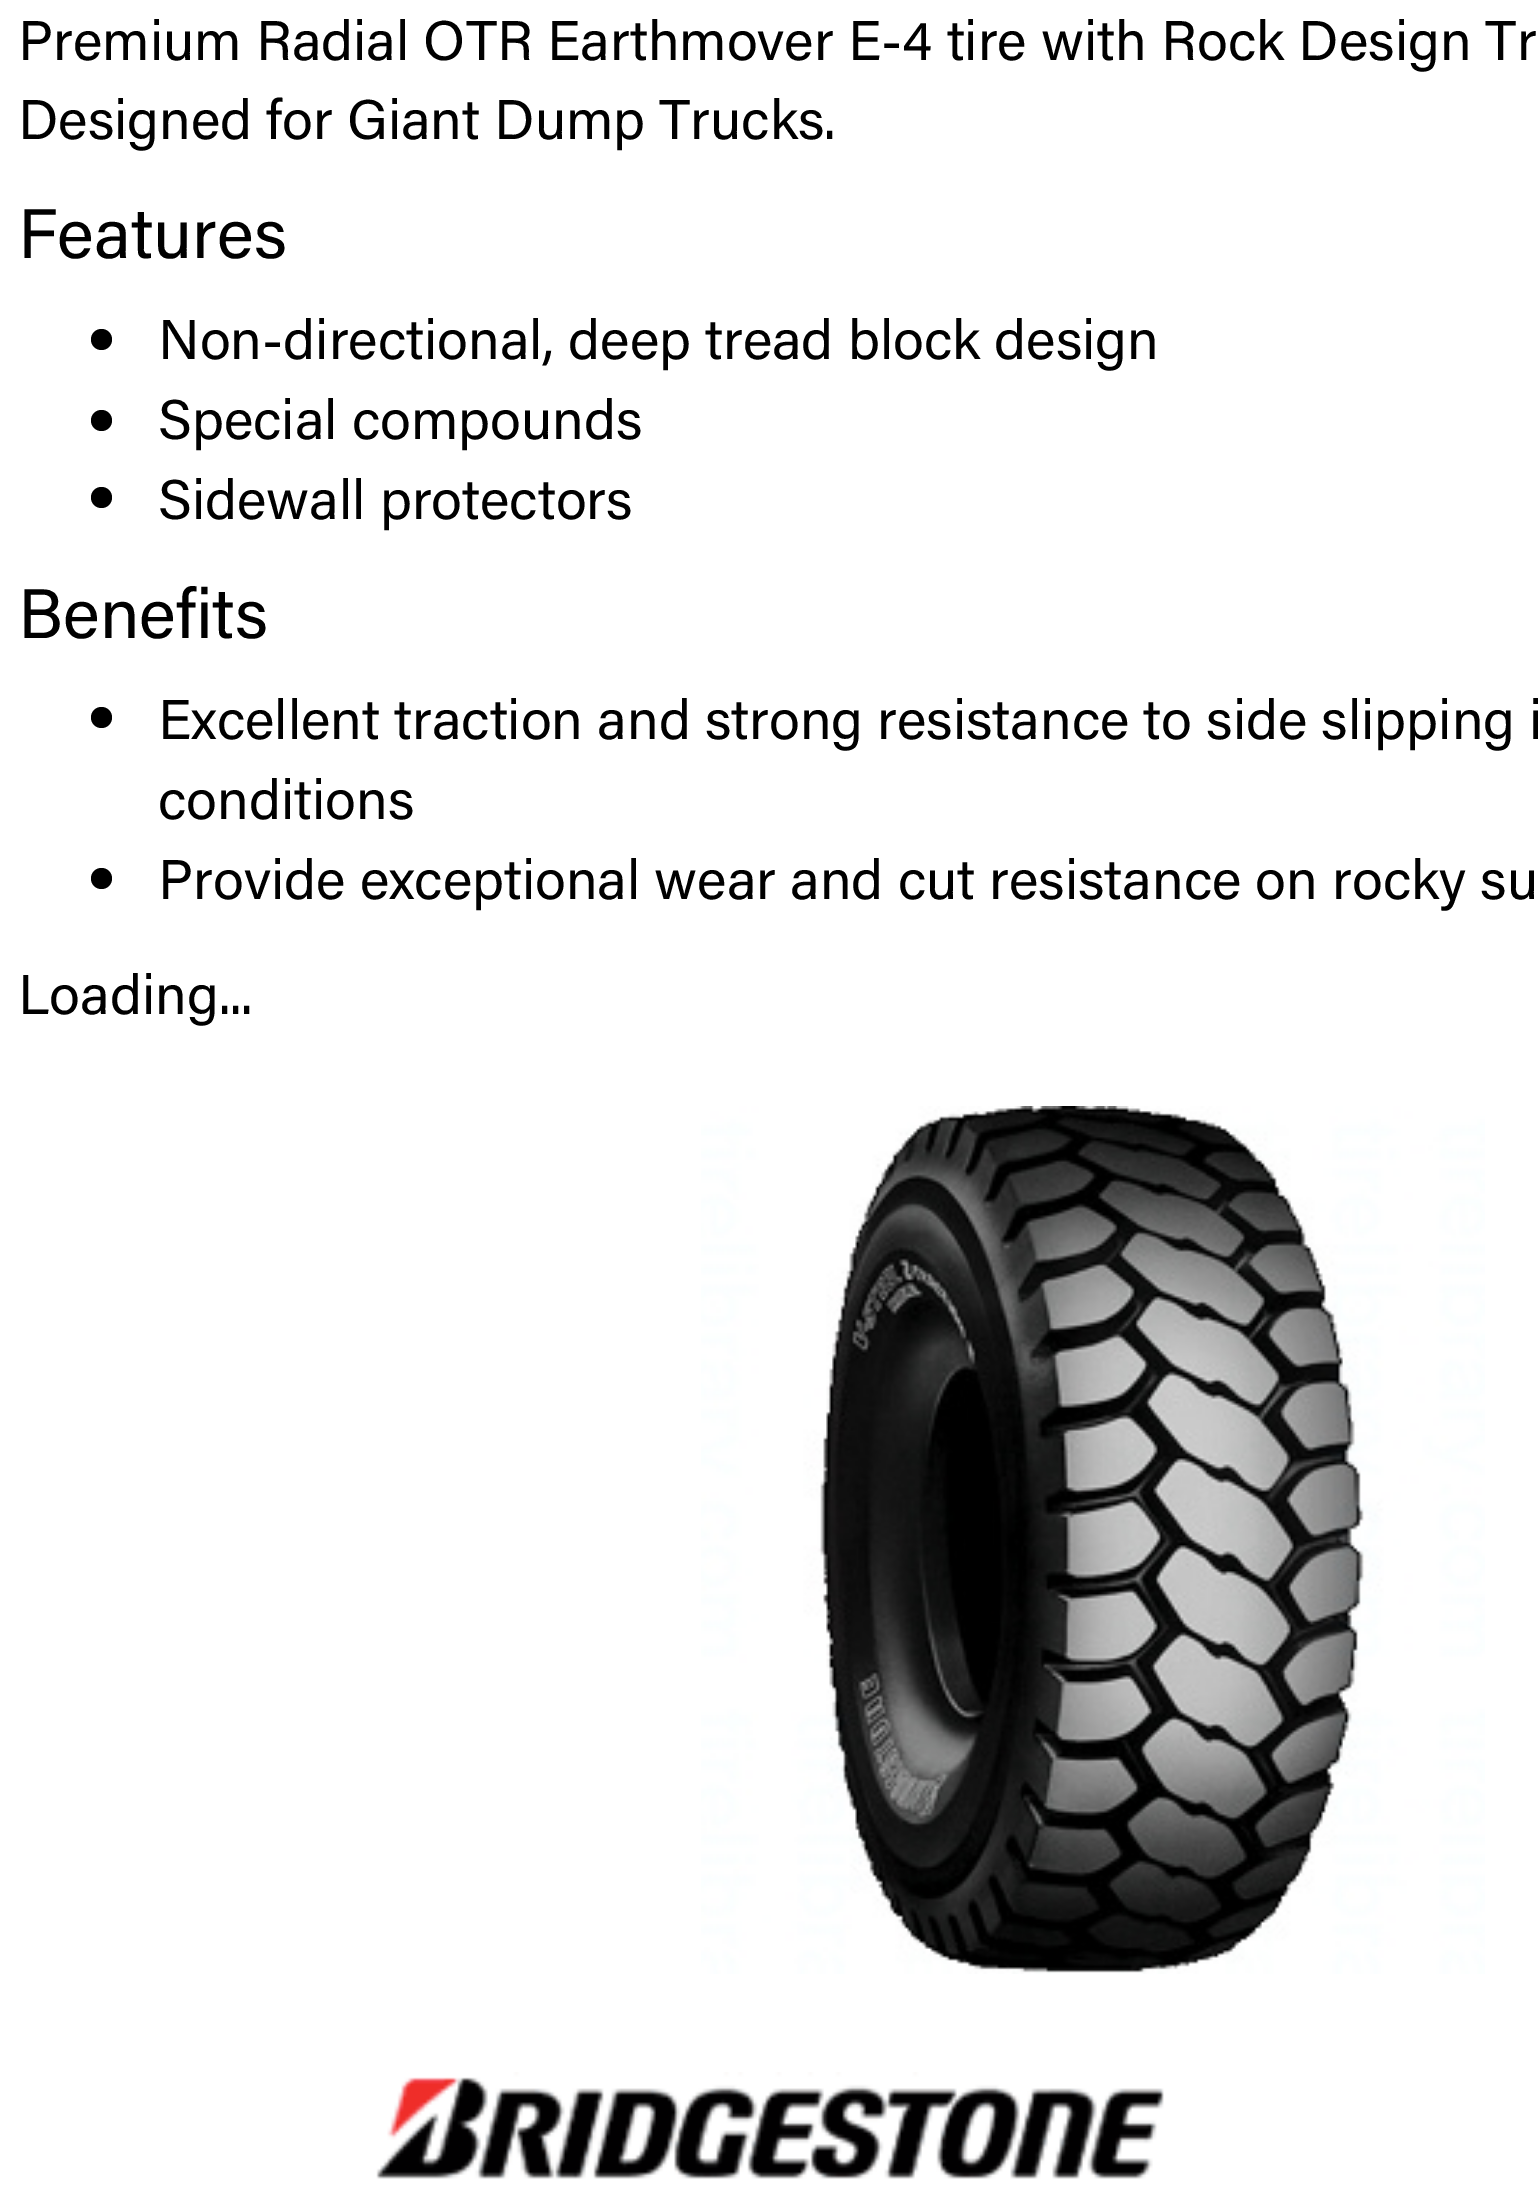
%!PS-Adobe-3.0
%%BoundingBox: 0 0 1538 2198
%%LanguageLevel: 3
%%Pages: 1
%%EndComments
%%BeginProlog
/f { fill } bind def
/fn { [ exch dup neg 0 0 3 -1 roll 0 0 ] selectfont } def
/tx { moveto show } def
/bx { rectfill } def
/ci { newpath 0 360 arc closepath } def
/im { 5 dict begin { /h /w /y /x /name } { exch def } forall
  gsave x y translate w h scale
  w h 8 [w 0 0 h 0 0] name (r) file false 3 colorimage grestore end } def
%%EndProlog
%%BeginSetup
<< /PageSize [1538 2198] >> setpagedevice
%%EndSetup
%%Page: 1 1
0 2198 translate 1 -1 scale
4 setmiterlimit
1 setgray
0 0 1538 2198 bx
/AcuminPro-Regular 56 fn
0 setgray
(Premium Radial OTR Earthmover E-4 tire with Rock Design Tr) 18 60 tx
(Designed for Giant Dump Trucks.) 18 139 tx
/AcuminPro-Regular 70 fn
(Features) 18 258 tx
101.5 339.5 10.5 ci f
/AcuminPro-Regular 56 fn
(Non-directional, deep tread block design) 158 359 tx
101.5 420.5 10.5 ci f
(Special compounds) 158 439 tx
101.5 497.5 10.5 ci f
(Sidewall protectors) 158 519 tx
/AcuminPro-Regular 70 fn
(Benefits) 18 638 tx
101.5 717.5 10.5 ci f
/AcuminPro-Regular 56 fn
(Excellent traction and strong resistance to side slipping i) 158 739 tx
(conditions) 158 819 tx
101.5 878.5 10.5 ci f
(Provide exceptional wear and cut resistance on rocky su) 158 899 tx
(Loading...) 18 1014 tx
(image0.raw) 701 1106 784 868 im
(image1.raw) 376 2072 788 107 im
showpage
%%EOF
